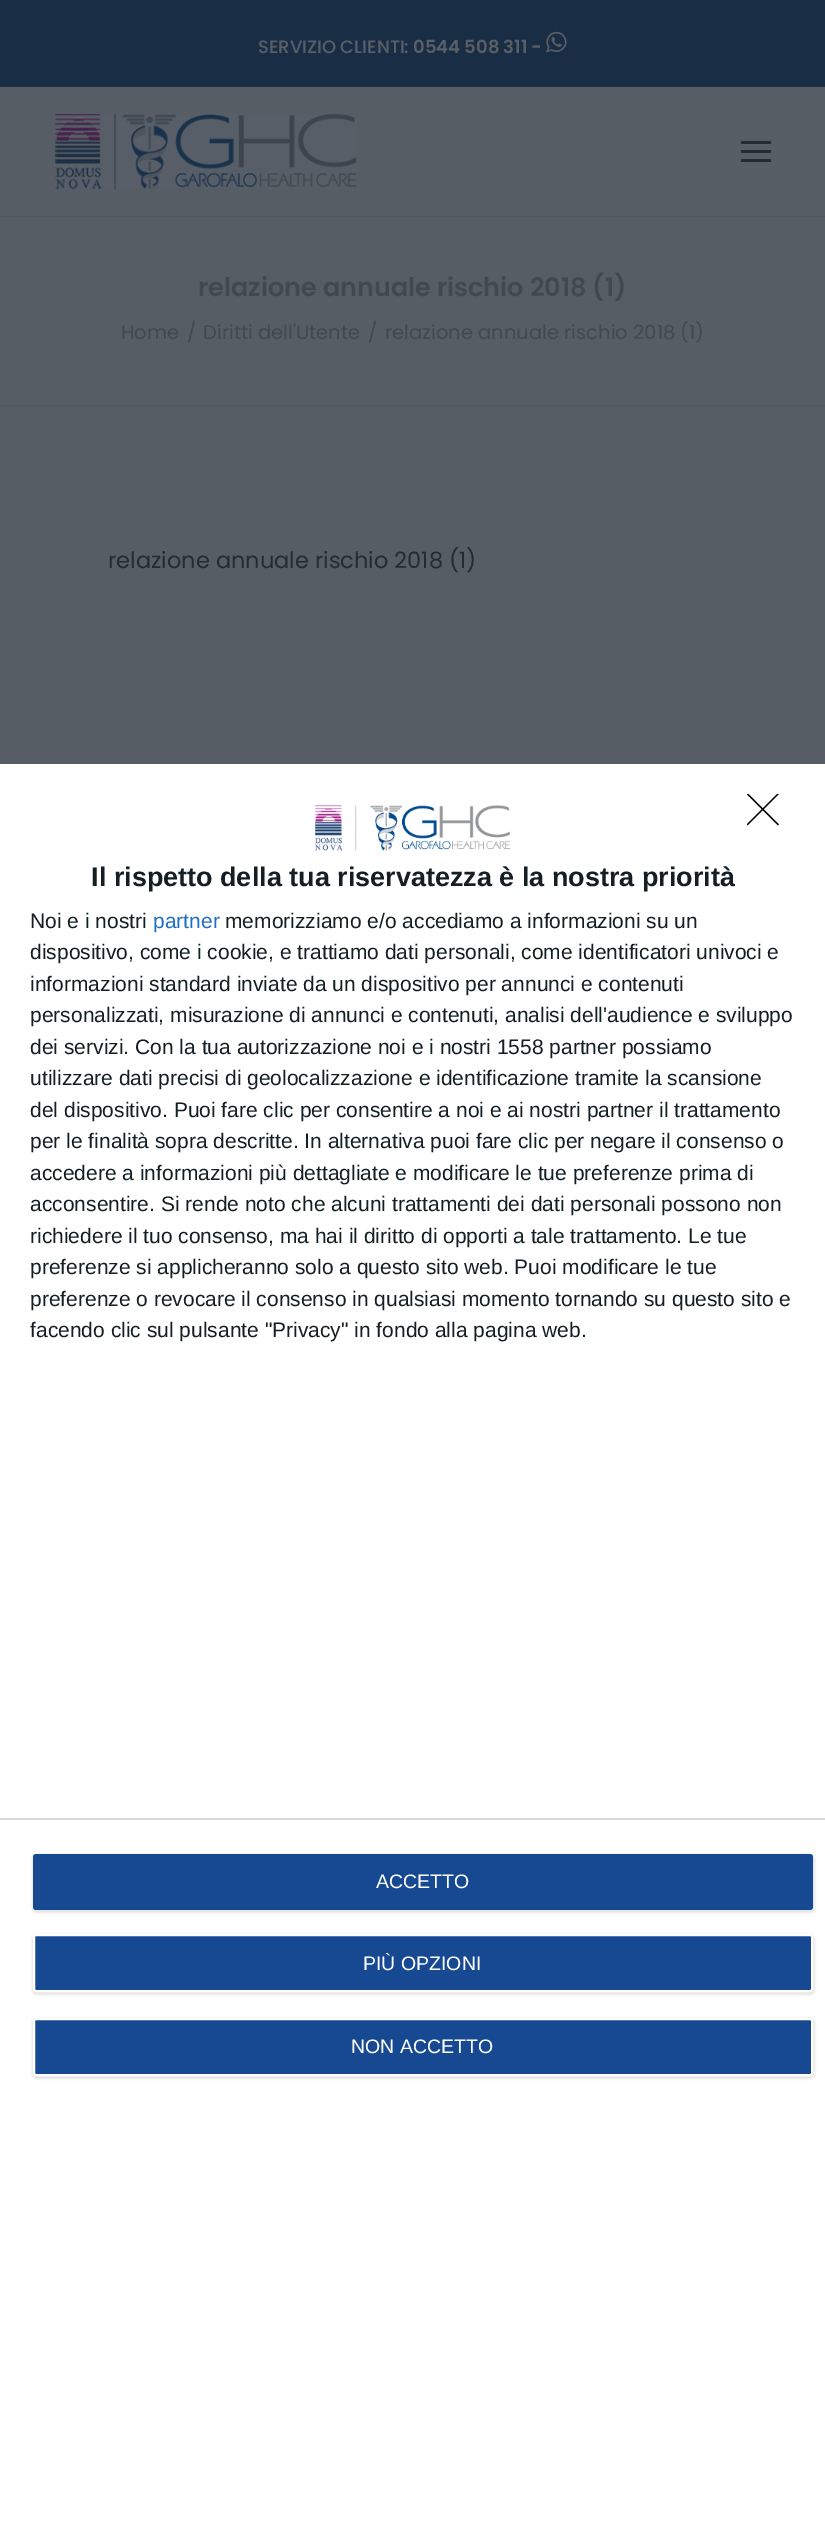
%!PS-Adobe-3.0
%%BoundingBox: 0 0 825 2547
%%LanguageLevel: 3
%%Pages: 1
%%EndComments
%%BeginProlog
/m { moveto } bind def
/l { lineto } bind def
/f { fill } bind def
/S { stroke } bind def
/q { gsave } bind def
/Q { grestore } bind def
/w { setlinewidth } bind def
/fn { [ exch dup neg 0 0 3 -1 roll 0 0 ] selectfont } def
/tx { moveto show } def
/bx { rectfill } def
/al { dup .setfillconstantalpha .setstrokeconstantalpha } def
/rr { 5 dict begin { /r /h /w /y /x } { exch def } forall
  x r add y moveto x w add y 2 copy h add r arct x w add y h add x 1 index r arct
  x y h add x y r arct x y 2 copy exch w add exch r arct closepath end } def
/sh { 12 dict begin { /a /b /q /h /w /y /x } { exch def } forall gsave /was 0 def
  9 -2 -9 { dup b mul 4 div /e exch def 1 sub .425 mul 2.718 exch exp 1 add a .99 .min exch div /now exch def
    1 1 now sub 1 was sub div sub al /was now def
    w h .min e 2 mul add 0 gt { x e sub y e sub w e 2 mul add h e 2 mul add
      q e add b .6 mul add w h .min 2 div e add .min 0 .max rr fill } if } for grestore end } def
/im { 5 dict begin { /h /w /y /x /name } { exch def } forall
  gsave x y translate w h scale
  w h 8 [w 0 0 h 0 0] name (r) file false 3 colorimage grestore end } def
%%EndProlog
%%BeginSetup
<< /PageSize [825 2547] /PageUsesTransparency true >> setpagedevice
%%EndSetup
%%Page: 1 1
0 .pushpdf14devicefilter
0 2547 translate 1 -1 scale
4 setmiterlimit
0.341 0.365 0.396 setrgbcolor
0 0 825 2547 bx
0.098 0.176 0.267 setrgbcolor
0 0 825 87 bx
/Poppins-Medium 18 fn
0.349 0.373 0.404 setrgbcolor
(SERVIZIO CLIENTI:) 258 53 tx
/Poppins-SemiBold 18 fn
(0544 508 311 -) 413 53 tx
(image0.raw) 546 31 21 22 im
(image1.raw) 55 114 302 75 im
0.145 0.169 0.204 setrgbcolor
741 150 30 3 1.5 rr f
741 141 30 3 1.5 rr f
741 159 30 3 1.5 rr f
0.325 0.349 0.384 setrgbcolor
0 216 825 1 bx
0 405 825 2 bx
/Poppins-SemiBold 25.5 fn
0.259 0.282 0.314 setrgbcolor
(relazione annuale rischio 2018 \(1\)) 198 296 tx
/Poppins-Regular 19.5 fn
(Home) 121 339 tx
(/) 187 339 tx
(Diritti dell'Utente) 203 339 tx
(/) 368 339 tx
(relazione annuale rischio 2018 \(1\)) 385 339 tx
/Poppins-Regular 22.5 fn
0.145 0.169 0.204 setrgbcolor
(relazione annuale rischio 2018 \(1\)) 108 568 tx
1 setgray
0 764 825 1783 bx
q
747 794 32 33 rectclip
0 setgray
1.3 w
1 setlinecap
1 setlinejoin
747.5 794 m 778 824.5 l 778 794 m 747.5 824.5 l S
Q
(image2.raw) 315 805 195 46 im
/LiberationSans-Bold 27 fn
0.078 0.118 0.137 setrgbcolor
(Il rispetto della tua riservatezza è la nostra priorità) 91 886 tx
/LiberationSans-Regular 21 fn
(Noi e i nostri) 30 928 tx
0.125 0.427 0.773 setrgbcolor
(partner) 153 928 tx
0.078 0.118 0.137 setrgbcolor
(memorizziamo e/o accediamo a informazioni su un) 225 928 tx
(dispositivo, come i cookie, e trattiamo dati personali, come identificatori univoci e) 30 959 tx
(informazioni standard inviate da un dispositivo per annunci e contenuti) 30 991 tx
(personalizzati, misurazione di annunci e contenuti, analisi dell'audience e sviluppo) 30 1022 tx
(dei servizi. Con la tua autorizzazione noi e i nostri 1558 partner possiamo) 30 1054 tx
(utilizzare dati precisi di geolocalizzazione e identificazione tramite la scansione) 30 1085 tx
(del dispositivo. Puoi fare clic per consentire a noi e ai nostri partner il trattamento) 30 1117 tx
(per le finalità sopra descritte. In alternativa puoi fare clic per negare il consenso o) 30 1148 tx
(accedere a informazioni più dettagliate e modificare le tue preferenze prima di) 30 1180 tx
(acconsentire. Si rende noto che alcuni trattamenti dei dati personali possono non) 30 1211 tx
(richiedere il tuo consenso, ma hai il diritto di opporti a tale trattamento. Le tue) 30 1243 tx
(preferenze si applicheranno solo a questo sito web. Puoi modificare le tue) 30 1274 tx
(preferenze o revocare il consenso in qualsiasi momento tornando su questo sito e) 30 1306 tx
(facendo clic sul pulsante "Privacy" in fondo alla pagina web.) 30 1337 tx
0.847 setgray
0 1818 825 2 bx
0 setgray
32 1854 783 59 5 1 0.1 sh
0.086 0.286 0.573 setrgbcolor
33 1854 780 56 3 rr f
/LiberationSans-Regular 19.5 fn
1 setgray
(ACCETTO) 376 1888 tx
0 setgray
32 1934 783 61 5 1 0.1 sh
0.086 0.286 0.573 setrgbcolor
34 1935 778 56 2 rr q f Q
1 setgray
2 w
S
(PIÙ OPZIONI) 363 1970 tx
0 setgray
32 2018 783 61 5 1 0.1 sh
0.086 0.286 0.573 setrgbcolor
34 2019 778 56 2 rr q f Q
1 setgray
S
(NON ACCETTO) 351 2053 tx
.poppdf14devicefilter showpage
%%EOF
